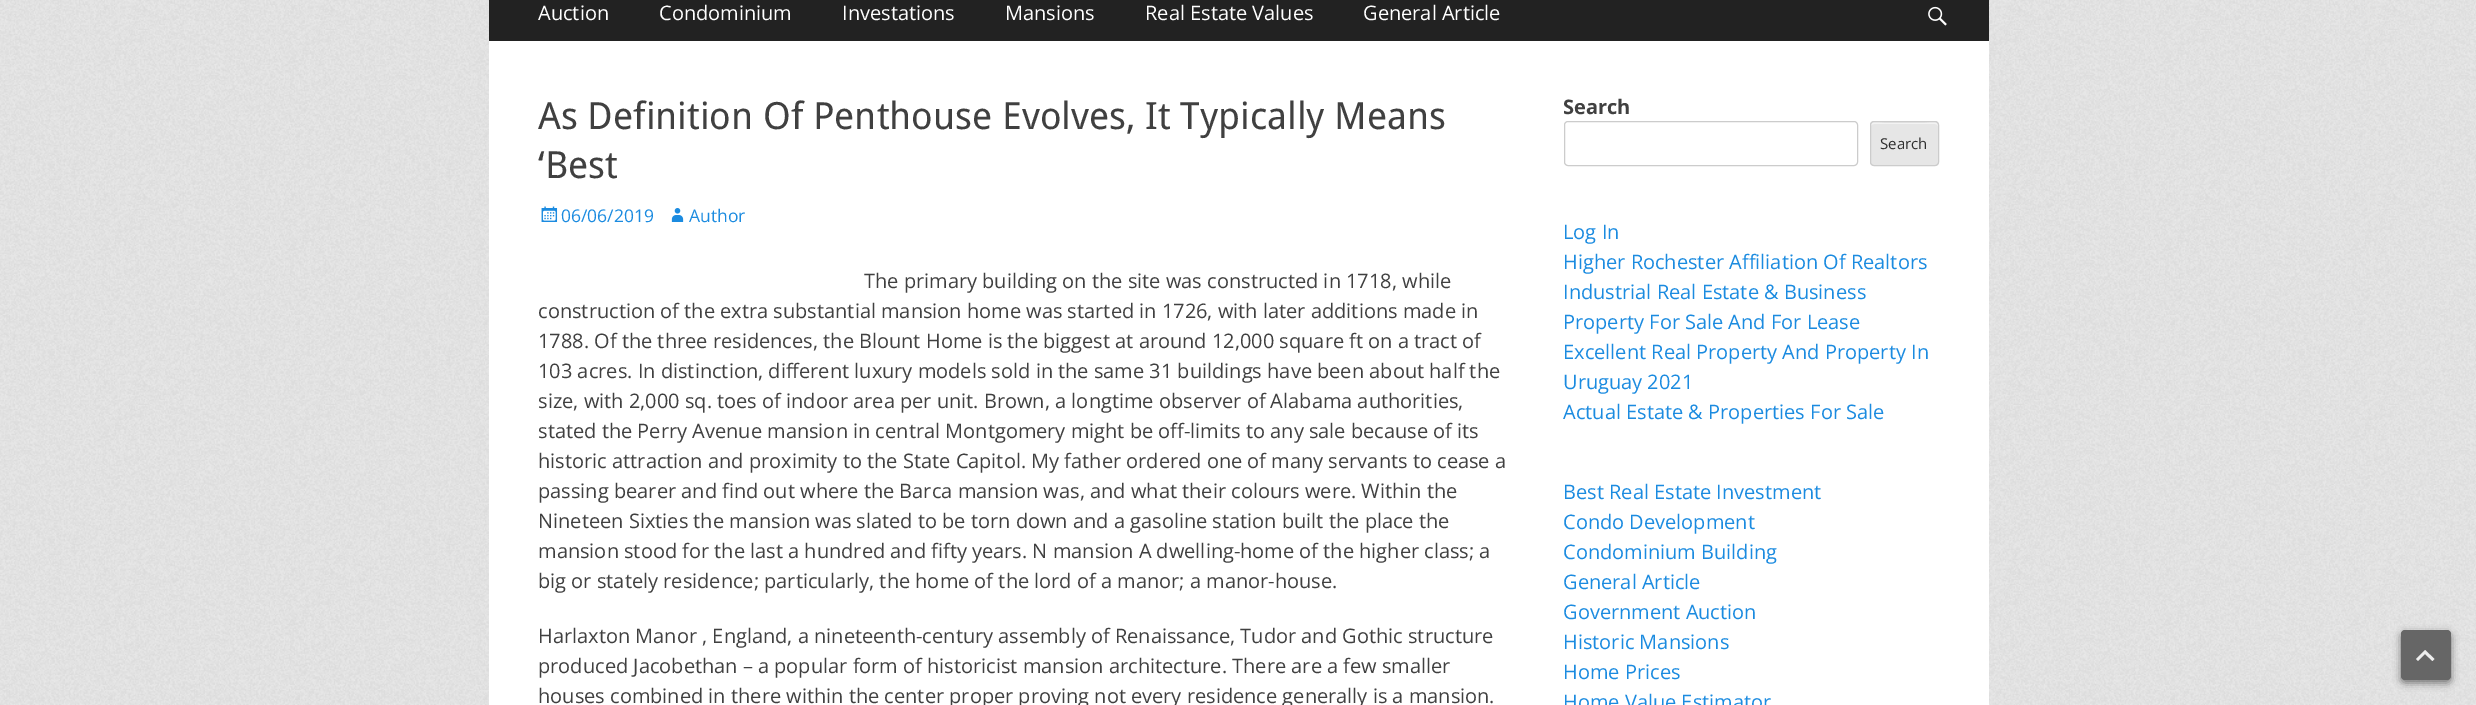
%!PS-Adobe-3.0
%%BoundingBox: 0 0 2476 705
%%LanguageLevel: 3
%%Pages: 1
%%EndComments
%%BeginProlog
/m { moveto } bind def
/l { lineto } bind def
/c { curveto } bind def
/h { closepath } bind def
/f { fill } bind def
/S { stroke } bind def
/fn { [ exch dup neg 0 0 3 -1 roll 0 0 ] selectfont } def
/tx { moveto show } def
/bx { rectfill } def
/al { dup .setfillconstantalpha .setstrokeconstantalpha } def
/rr { 5 dict begin { /r /h /w /y /x } { exch def } forall
  x r add y moveto x w add y 2 copy h add r arct x w add y h add x 1 index r arct
  x y h add x y r arct x y 2 copy exch w add exch r arct closepath end } def
/sh { 12 dict begin { /a /b /q /h /w /y /x } { exch def } forall gsave /was 0 def
  9 -2 -9 { dup b mul 4 div /e exch def 1 sub .425 mul 2.718 exch exp 1 add a .99 .min exch div /now exch def
    1 1 now sub 1 was sub div sub al /was now def
    w h .min e 2 mul add 0 gt { x e sub y e sub w e 2 mul add h e 2 mul add
      q e add b .6 mul add w h .min 2 div e add .min 0 .max rr fill } if } for grestore end } def
/im { 5 dict begin { /h /w /y /x /name } { exch def } forall
  gsave x y translate w h scale
  w h 8 [w 0 0 h 0 0] name (r) file false 3 colorimage grestore end } def
%%EndProlog
%%BeginSetup
<< /PageSize [2476 705] /PageUsesTransparency true >> setpagedevice
%%EndSetup
%%Page: 1 1
0 .pushpdf14devicefilter
0 705 translate 1 -1 scale
4 setmiterlimit
1 setgray
0 0 2476 705 bx
(image0.raw) 0 0 2476 705 im
0.133 setgray
489 0 1500 41 bx
/OpenSans-Regular 20 fn
1 setgray
(Auction) 538 20 tx
(Condominium) 659 20 tx
(Investations) 842 20 tx
(Mansions) 1005 20 tx
(Real Estate Values) 1145 20 tx
(General Article) 1363 20 tx
(image1.raw) 1928 6 19 20 im
489 41 1500 664 bx
/DroidSans-Regular 37.5 fn
0.251 setgray
(As Definition Of Penthouse Evolves, It Typically Means) 538 129 tx
(‘Best) 538 178 tx
(image2.raw) 541 206 17 16 im
/OpenSans-Regular 17.5 fn
0.106 0.545 0.878 setrgbcolor
(06/06/2019) 561 222 tx
(image3.raw) 671 208 13 14 im
(Author) 689 222 tx
/OpenSans-Regular 20 fn
0.251 setgray
(The primary building on the site was constructed in 1718, while) 864 288 tx
(construction of the extra substantial mansion home was started in 1726, with later additions made in) 538 318 tx
(1788. Of the three residences, the Blount Home is the biggest at around 12,000 square ft on a tract of) 538 348 tx
(103 acres. In distinction, different luxury models sold in the same 31 buildings have been about half the) 538 378 tx
(size, with 2,000 sq. toes of indoor area per unit. Brown, a longtime observer of Alabama authorities,) 538 408 tx
(stated the Perry Avenue mansion in central Montgomery might be off-limits to any sale because of its) 538 438 tx
(historic attraction and proximity to the State Capitol. My father ordered one of many servants to cease a) 538 468 tx
(passing bearer and find out where the Barca mansion was, and what their colours were. Within the) 538 498 tx
(Nineteen Sixties the mansion was slated to be torn down and a gasoline station built the place the) 538 528 tx
(mansion stood for the last a hundred and fifty years. N mansion A dwelling-home of the higher class; a) 538 558 tx
(big or stately residence; particularly, the home of the lord of a manor; a manor-house.) 538 588 tx
(Harlaxton Manor , England, a nineteenth-century assembly of Renaissance, Tudor and Gothic structure) 538 643 tx
(produced Jacobethan – a popular form of historicist mansion architecture. There are a few smaller) 538 673 tx
(houses combined in there within the center proper proving not every residence generally is a mansion.) 538 703 tx
/OpenSans-Bold 20 fn
(Search) 1563 114 tx
0.8 setgray
1564.5 121.5 293 44 3.5 rr S
0.902 setgray
1870 121 69 45 4 rr f
0.953 setgray
1874 124 m 1935 124 l 1936 124 1938 125 1938 126 c 1938 120 1927 123 1925 123 c 1884 123 l 1882 123 1871 120 1871 126 c 1871 125 1872 124 1874 124 c h f
0.8 setgray
1870.5 121.5 68 44 3.5 rr S
/OpenSans-Regular 15 fn
0.18 setgray
(Search) 1880 149 tx
/OpenSans-Regular 20 fn
0.106 0.545 0.878 setrgbcolor
(Log In) 1563 239 tx
(Higher Rochester Affiliation Of Realtors) 1563 269 tx
(Industrial Real Estate & Business) 1563 299 tx
(Property For Sale And For Lease) 1563 329 tx
(Excellent Real Property And Property In) 1563 359 tx
(Uruguay 2021) 1563 389 tx
(Actual Estate & Properties For Sale) 1563 419 tx
(Best Real Estate Investment) 1563 499 tx
(Condo Development) 1563 529 tx
(Condominium Building) 1563 559 tx
(General Article) 1563 589 tx
(Government Auction) 1563 619 tx
(Historic Mansions) 1563 649 tx
(Home Prices) 1563 679 tx
(Home Value Estimator) 1563 709 tx
0 setgray
2401 633 50 50 4 4 0.5 sh
0.4 setgray
2401 630 50 50 4 rr f
0.933 setgray
2432.5 661 m 2425 654 l 2418 661 l 2416 659 l 2425 650 l 2434.5 659 l h f
.poppdf14devicefilter showpage
%%EOF
